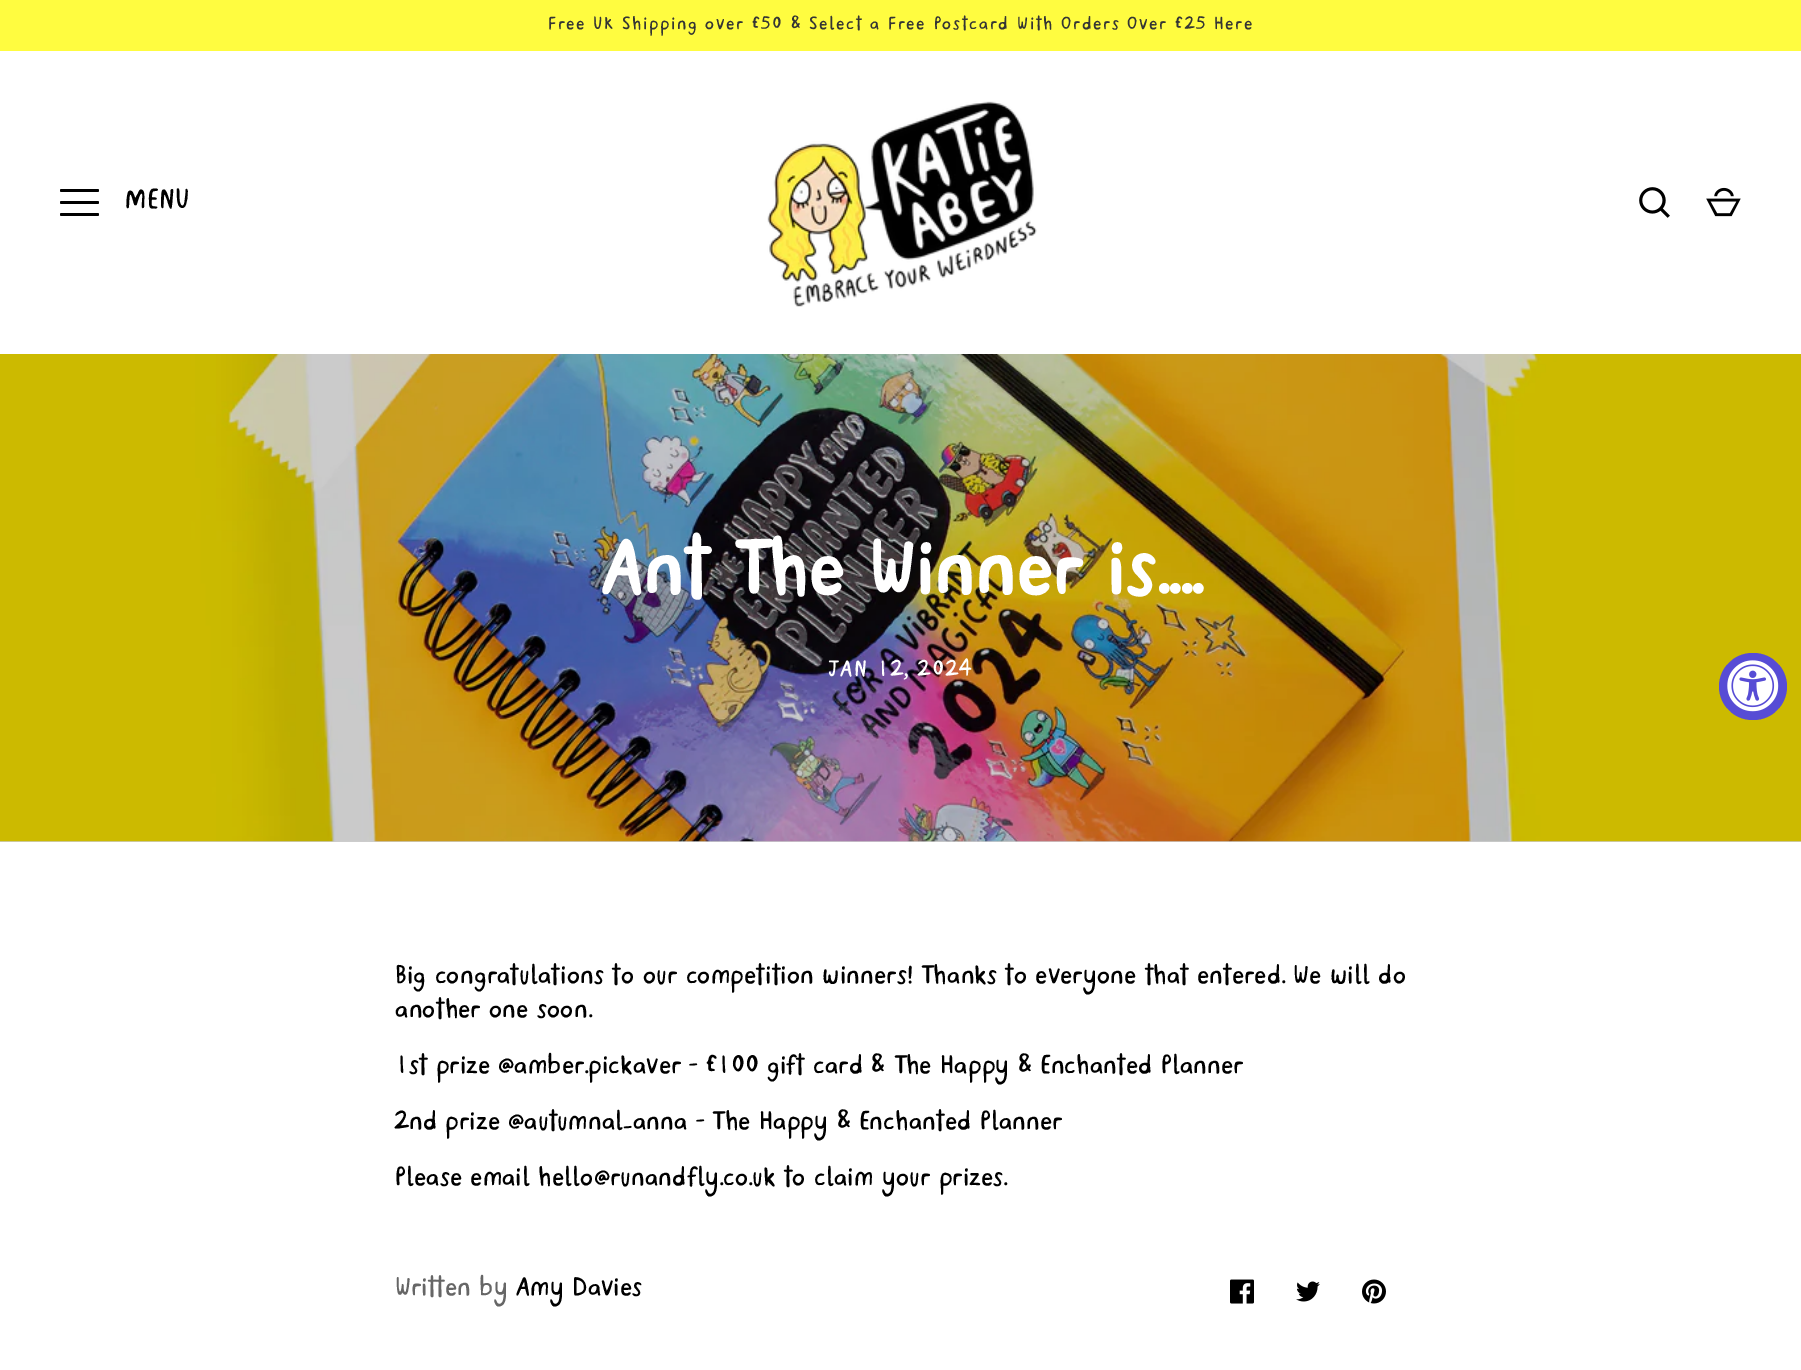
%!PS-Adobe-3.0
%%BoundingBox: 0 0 1801 1370
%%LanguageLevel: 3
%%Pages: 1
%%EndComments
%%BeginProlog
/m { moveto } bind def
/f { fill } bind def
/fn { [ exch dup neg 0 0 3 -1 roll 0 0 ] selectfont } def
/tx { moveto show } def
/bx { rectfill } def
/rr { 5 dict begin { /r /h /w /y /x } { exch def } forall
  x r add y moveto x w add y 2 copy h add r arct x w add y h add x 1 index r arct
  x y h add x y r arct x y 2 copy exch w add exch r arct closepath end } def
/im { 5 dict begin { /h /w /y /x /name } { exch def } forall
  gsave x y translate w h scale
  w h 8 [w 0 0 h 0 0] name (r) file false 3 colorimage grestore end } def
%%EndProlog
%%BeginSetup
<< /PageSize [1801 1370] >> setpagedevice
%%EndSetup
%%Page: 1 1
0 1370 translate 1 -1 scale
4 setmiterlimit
1 setgray
0 0 1801 1370 bx
0.8 setgray
0 841 1801 1 bx
1 0.988 0.251 setrgbcolor
0 0 1801 51 bx
/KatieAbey-Regular 15.45 fn
0.204 0.208 0.204 setrgbcolor
548 29 m 1.55 0 (Free UK Shipping over £50 & Select a Free Postcard With Orders Over £25 Here) ashow
0 setgray
60 189 39 3 1.5 rr f
60 201 39 3 1.5 rr f
60 213 39 3 1.5 rr f
/KatieAbey-Regular 24 fn
125 208 m 0.5 0 (MENU) ashow
(image0.raw) 767 101 270 206 im
(image1.raw) 1639 187 31 31 im
(image2.raw) 1706 187 35 30 im
(image3.raw) 0 354 1801 488 im
/KatieAbey-Bold 66 fn
1 setgray
(Ant The Winner is....) 601 593 tx
/KatieAbey-Regular 19.75 fn
828 676 m 1.5 0 (JAN 12, 2024) ashow
/KatieAbey-Regular 22.5 fn
0 setgray
(Big congratulations to our competition winners! Thanks to everyone that entered. We will do) 395 983 tx
(another one soon.) 395 1017 tx
(1st prize @amber.pickaver - £100 gift card & The Happy & Enchanted Planner) 395 1073 tx
(2nd prize @autumnal_anna - The Happy & Enchanted Planner) 395 1129 tx
(Please email hello@runandfly.co.uk to claim your prizes.) 395 1185 tx
0.4 setgray
(Written by) 395 1295 tx
0 setgray
(Amy Davies) 516 1295 tx
(image4.raw) 1230 1279 24 25 im
(image5.raw) 1296 1281 24 21 im
(image6.raw) 1362 1279 24 25 im
0.341 0.298 0.835 setrgbcolor
1719 653 68 67 33.5 rr f
(image7.raw) 1727 660 52 52 im
showpage
%%EOF
